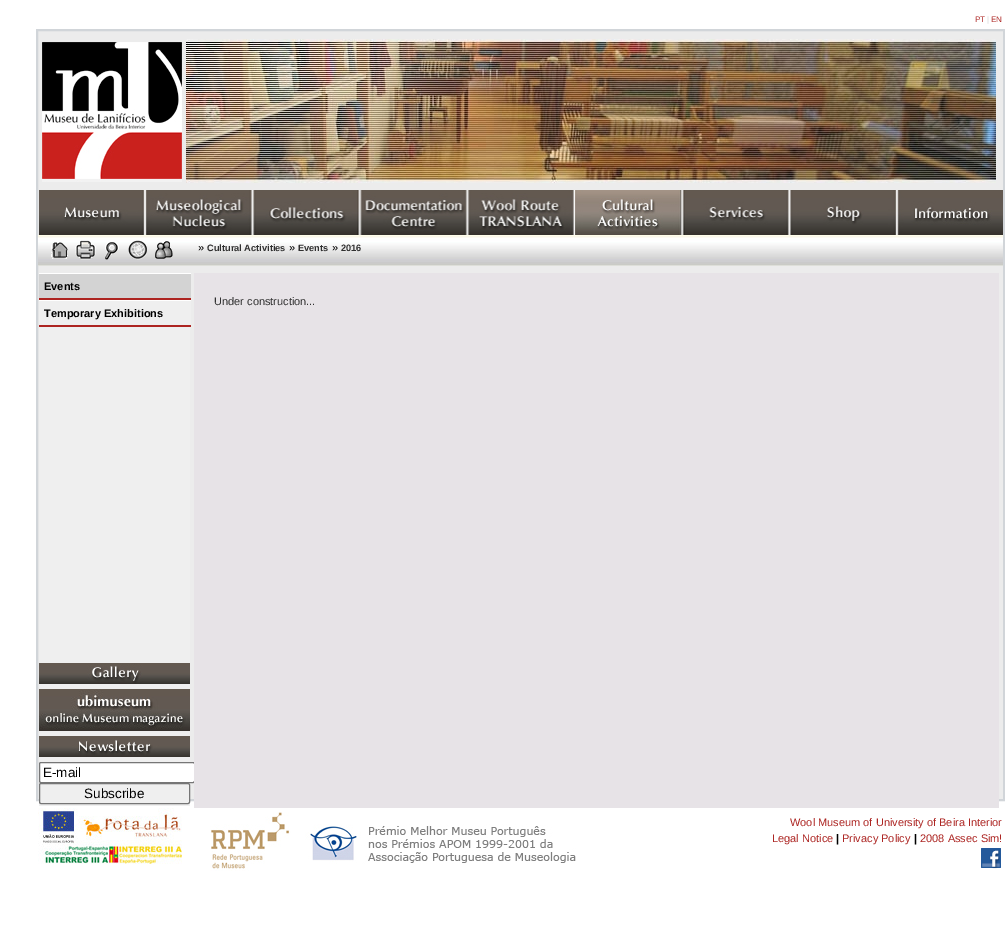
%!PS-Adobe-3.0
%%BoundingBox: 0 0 1005 948
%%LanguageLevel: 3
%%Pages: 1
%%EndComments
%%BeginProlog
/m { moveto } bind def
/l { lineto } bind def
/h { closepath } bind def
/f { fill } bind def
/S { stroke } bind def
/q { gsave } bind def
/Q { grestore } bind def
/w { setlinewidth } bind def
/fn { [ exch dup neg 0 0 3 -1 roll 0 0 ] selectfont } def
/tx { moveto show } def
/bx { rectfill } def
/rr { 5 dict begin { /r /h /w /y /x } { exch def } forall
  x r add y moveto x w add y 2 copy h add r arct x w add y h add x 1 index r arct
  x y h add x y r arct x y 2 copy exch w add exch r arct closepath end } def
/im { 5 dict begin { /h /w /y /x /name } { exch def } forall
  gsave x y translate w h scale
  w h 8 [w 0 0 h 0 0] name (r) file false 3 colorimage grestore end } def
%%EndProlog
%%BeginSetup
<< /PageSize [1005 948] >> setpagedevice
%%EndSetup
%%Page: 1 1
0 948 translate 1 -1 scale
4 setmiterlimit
1 setgray
0 0 1005 948 bx
/LiberationSans-Regular 8 fn
0.678 0.149 0.137 setrgbcolor
(PT) 975 22 tx
0.8 setgray
(|) 987 22 tx
0.678 0.149 0.137 setrgbcolor
(EN) 991 22 tx
0.925 setgray
37 30 m 1004 30 l 1004 800 l 37 800 l h q f Q
0.82 0.835 0.851 setrgbcolor
2 w
S
(image0.raw) 42 42 140 140 im
(image1.raw) 186 39 810 144 im
(image2.raw) 39 190 964 45 im
(image3.raw) 574 190 106 45 im
(image4.raw) 38 235 965 31 im
(image5.raw) 51 242 17 17 im
(image6.raw) 75 240 21 20 im
(image7.raw) 105 242 14 18 im
(image8.raw) 128 240 19 20 im
(image9.raw) 155 241 18 18 im
/LiberationSans-Regular 11 fn
0 setgray
(») 198 251 tx
/LiberationSans-Bold 9.25 fn
0.188 setgray
(Cultural Activities) 207 251 tx
/LiberationSans-Regular 11 fn
0 setgray
(») 289 251 tx
/LiberationSans-Bold 9.25 fn
0.188 setgray
(Events) 298 251 tx
/LiberationSans-Regular 11 fn
0 setgray
(») 332 251 tx
/LiberationSans-Bold 9.25 fn
0.188 setgray
(2016) 341 251 tx
0.937 setgray
39 327 151 479 bx
0.827 setgray
39 274 152 24 bx
1 setgray
39 273 152 1 bx
0.678 0.141 0.129 setrgbcolor
39 298 152 2 bx
/LiberationSans-Bold 11 fn
0 setgray
(Events) 44 290 tx
0.937 setgray
39 301 152 24 bx
1 setgray
39 300 152 1 bx
0.678 0.141 0.129 setrgbcolor
39 325 152 2 bx
0 setgray
(Temporary Exhibitions) 44 317 tx
(image10.raw) 39 663 151 21 im
(image11.raw) 39 689 151 42 im
(image12.raw) 39 736 151 21 im
1 setgray
39.5 762.5 155 20 1.5 rr q f Q
0.463 setgray
1 w
S
/LiberationSans-Regular 13.5 fn
0 setgray
(E-mail) 43 777 tx
0.463 setgray
39.5 783.5 150 20 1.5 rr S
0 setgray
(Subscribe) 84 798 tx
0.906 0.89 0.906 setrgbcolor
194 273 805 535 bx
/LiberationSans-Regular 11 fn
0.188 setgray
(Under construction...) 214 305 tx
(image13.raw) 38 808 144 56 im
(image14.raw) 210 812 366 59 im
0.678 0.149 0.137 setrgbcolor
(Wool Museum of University of Beira Interior) 790 826 tx
(Legal Notice) 772 842 tx
/LiberationSans-Bold 11 fn
0 setgray
(|) 836 842 tx
/LiberationSans-Regular 11 fn
0.678 0.149 0.137 setrgbcolor
(Privacy Policy) 842 842 tx
/LiberationSans-Bold 11 fn
0 setgray
(|) 914 842 tx
/LiberationSans-Regular 11 fn
0.678 0.149 0.137 setrgbcolor
(2008 Assec Sim!) 920 842 tx
(image15.raw) 981 848 20 21 im
showpage
%%EOF
